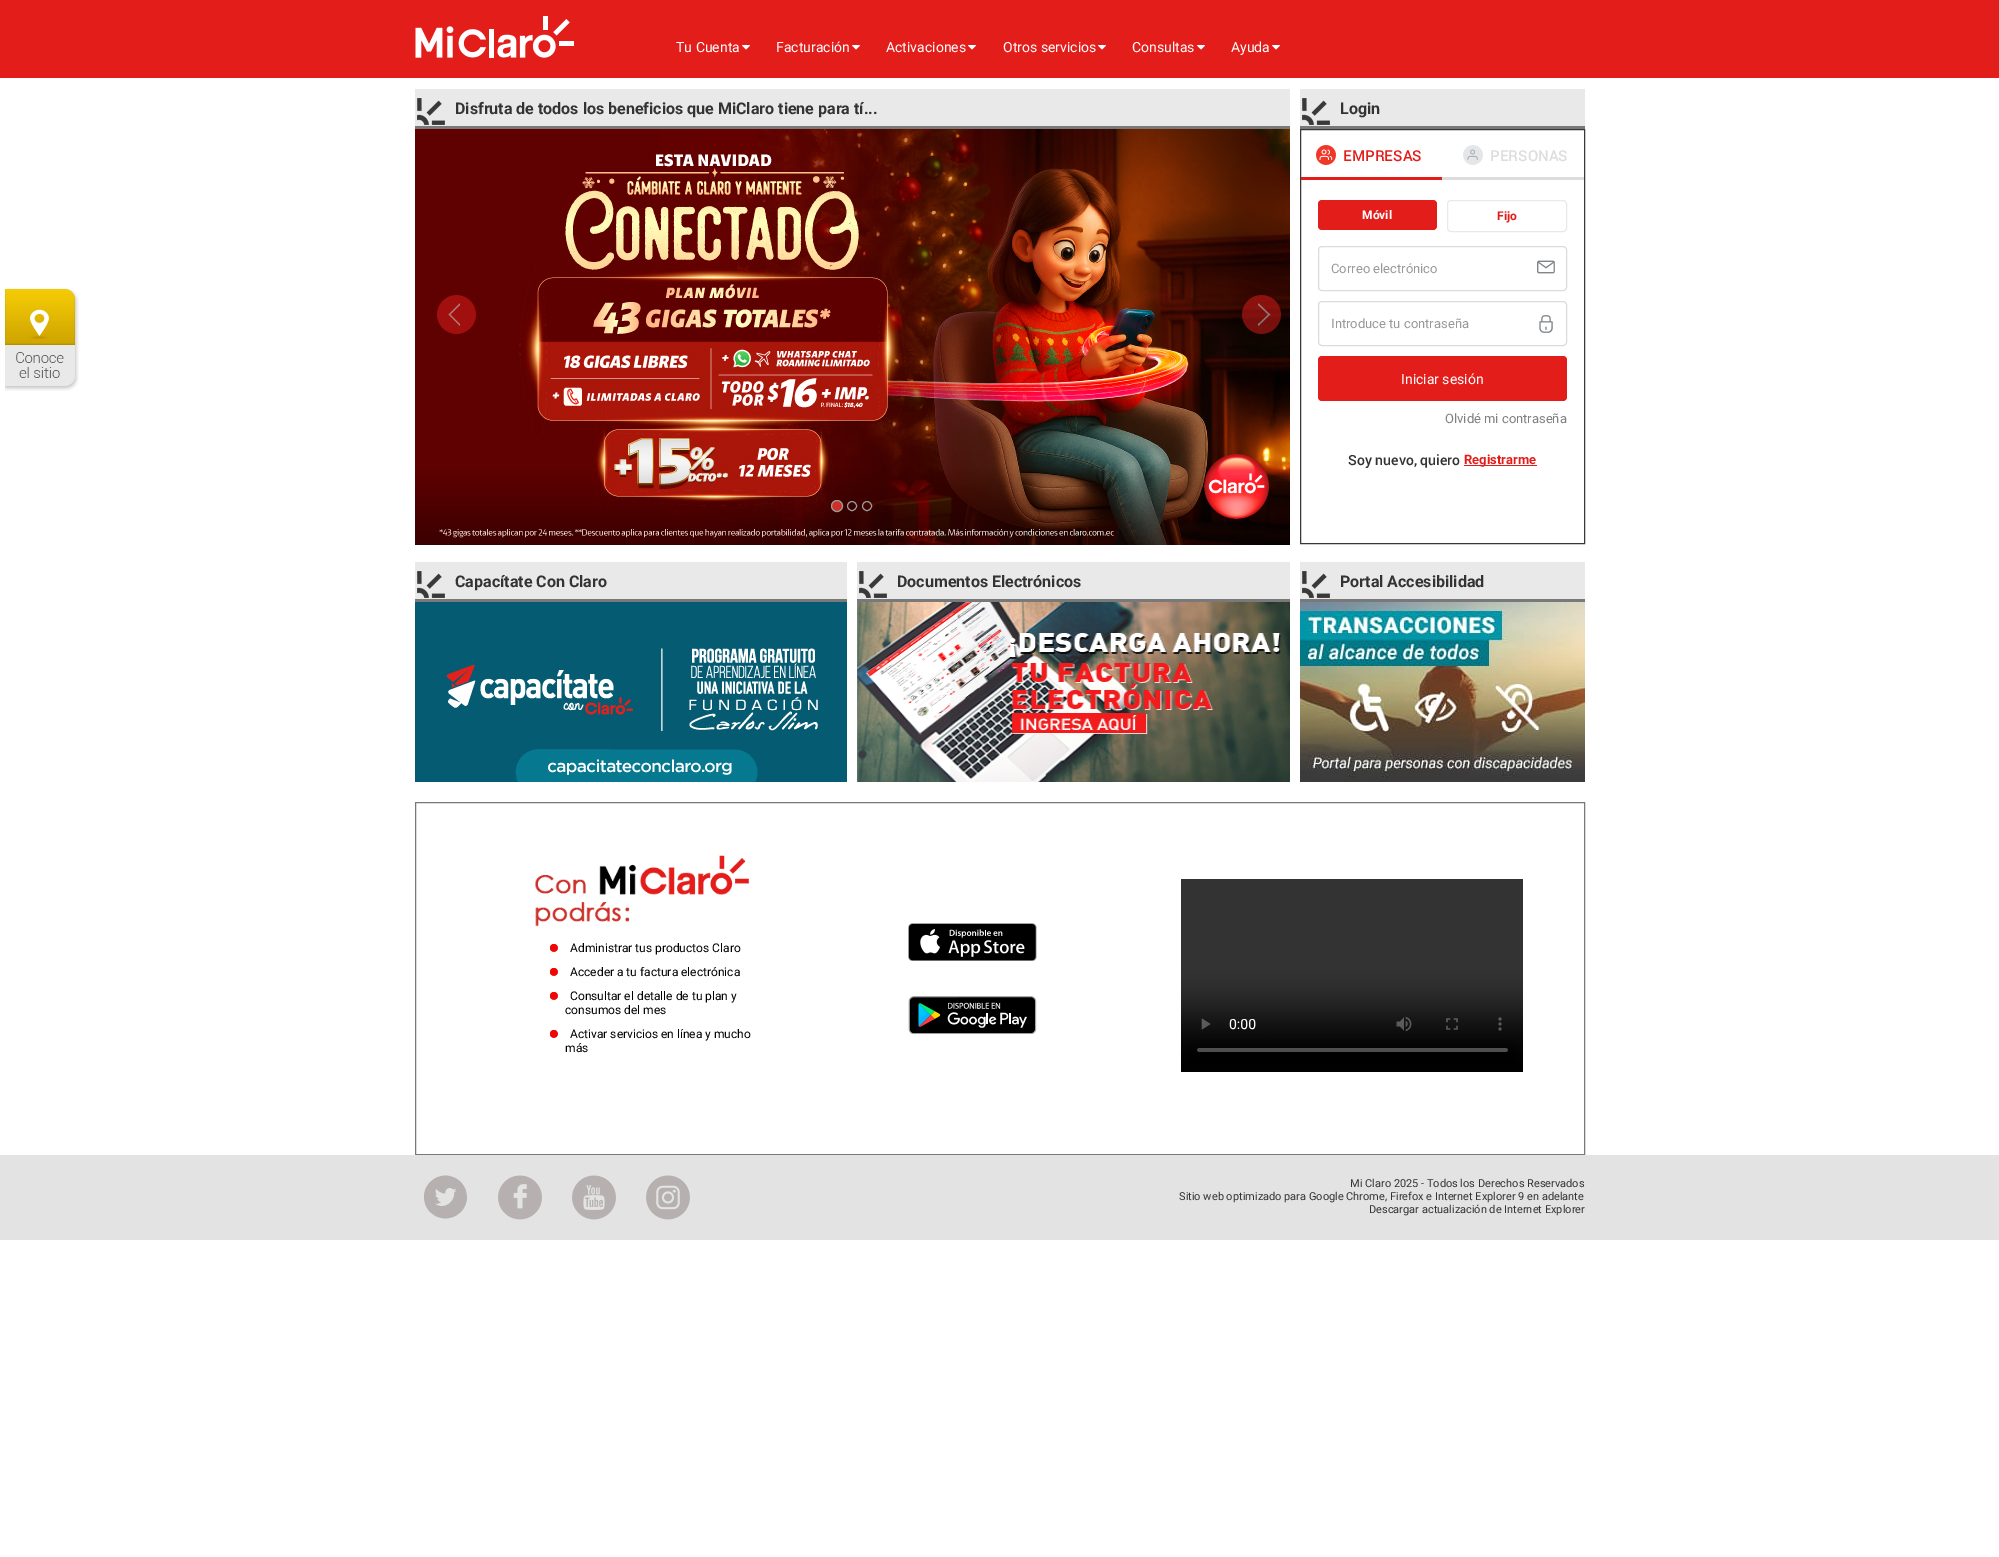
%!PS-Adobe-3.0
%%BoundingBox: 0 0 1999 1557
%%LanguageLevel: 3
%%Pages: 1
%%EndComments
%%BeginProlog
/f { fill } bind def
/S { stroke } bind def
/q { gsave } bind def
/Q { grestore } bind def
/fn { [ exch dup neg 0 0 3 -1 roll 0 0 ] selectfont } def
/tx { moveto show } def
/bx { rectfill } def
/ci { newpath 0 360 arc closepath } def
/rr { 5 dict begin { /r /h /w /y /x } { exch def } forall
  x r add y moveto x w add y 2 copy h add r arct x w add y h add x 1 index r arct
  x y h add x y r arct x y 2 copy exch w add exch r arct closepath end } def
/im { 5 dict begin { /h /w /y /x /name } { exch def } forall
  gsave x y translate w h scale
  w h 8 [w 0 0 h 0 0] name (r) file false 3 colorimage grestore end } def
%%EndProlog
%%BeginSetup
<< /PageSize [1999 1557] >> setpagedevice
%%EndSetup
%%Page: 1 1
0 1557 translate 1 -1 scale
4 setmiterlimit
1 setgray
0 0 1999 1557 bx
0.89 0.114 0.102 setrgbcolor
0 0 1999 78 bx
(image0.raw) 415 16 159 42 im
/Roboto-Regular 14 fn
1 setgray
(Tu Cuenta) 676 52 tx
(image1.raw) 742 45 8 5 im
(Facturación) 776 52 tx
(image1.raw) 852 45 8 5 im
(Activaciones) 886 52 tx
(image1.raw) 968 45 8 5 im
(Otros servicios) 1003 52 tx
(image1.raw) 1098 45 8 5 im
(Consultas) 1132 52 tx
(image1.raw) 1197 45 8 5 im
(Ayuda) 1231 52 tx
(image1.raw) 1272 45 8 5 im
(image2.raw) 5 288 74 103 im
0.914 setgray
415 89 875 37 bx
0.475 setgray
415 126 875 3 bx
(image3.raw) 417 98 28 27 im
/Roboto-Bold 16 fn
0.2 setgray
(Disfruta de todos los beneficios que MiClaro tiene para tí...) 455 114 tx
(image4.raw) 415 129 875 416 im
(image5.raw) 437 295 39 39 im
(image6.raw) 1242 295 39 39 im
0.804 0.188 0.161 setrgbcolor
837 506 5.5 ci q f Q
0.612 0.608 0.608 setrgbcolor
S
852 506 4.5 ci S
867 506 4.5 ci S
0.914 setgray
1300 89 285 37 bx
0.475 setgray
1300 126 285 3 bx
(image3.raw) 1302 98 28 27 im
0.2 setgray
(Login) 1340 114 tx
0.224 setgray
1300.5 129.5 284 414 rectstroke
(image7.raw) 1316 145 20 20 im
/Roboto-Medium 15 fn
0.89 0.114 0.102 setrgbcolor
(EMPRESAS) 1343 161 tx
(image8.raw) 1463 145 20 20 im
0.867 setgray
(PERSONAS) 1490 161 tx
0.89 0.114 0.102 setrgbcolor
1301 177 141 3 bx
0.867 setgray
1442 177 142 3 bx
0.89 0.114 0.102 setrgbcolor
1318 200 119 30 4 rr f
/Roboto-Bold 12 fn
1 setgray
(Móvil) 1362 219 tx
0.914 setgray
1447.5 200.5 119 31 3.5 rr S
0.89 0.114 0.102 setrgbcolor
(Fijo) 1497 220 tx
0.863 setgray
1318.5 246.5 248 44 3.5 rr S
/Roboto-Regular 13 fn
0.6 setgray
(Correo electrónico) 1331 273 tx
(image9.raw) 1537 260 18 14 im
0.863 setgray
1318.5 301.5 248 44 3.5 rr S
0.6 setgray
(Introduce tu contraseña) 1331 328 tx
(image10.raw) 1539 315 14 18 im
0.89 0.114 0.102 setrgbcolor
1318 356 249 45 4 rr f
/Roboto-Regular 14 fn
1 setgray
(Iniciar sesión) 1401 384 tx
/Roboto-Regular 13 fn
0.502 setgray
(Olvidé mi contraseña) 1445 423 tx
/Roboto-Medium 14 fn
0.2 setgray
(Soy nuevo, quiero) 1348 465 tx
0.89 0.114 0.102 setrgbcolor
1464 465 73 1 bx
/Roboto-Bold 13 fn
(Registrarme) 1464 464 tx
0.914 setgray
415 562 432 37 bx
0.475 setgray
415 599 432 3 bx
(image3.raw) 417 571 28 27 im
/Roboto-Bold 16 fn
0.2 setgray
(Capacítate Con Claro) 455 587 tx
(image11.raw) 415 602 432 180 im
0.914 setgray
857 562 433 37 bx
0.475 setgray
857 599 433 3 bx
(image3.raw) 859 571 28 27 im
0.2 setgray
(Documentos Electrónicos) 897 587 tx
(image12.raw) 857 602 433 180 im
0.914 setgray
1300 562 285 37 bx
0.475 setgray
1300 599 285 3 bx
(image3.raw) 1302 571 28 27 im
0.2 setgray
(Portal Accesibilidad) 1340 587 tx
(image13.raw) 1300 602 285 180 im
0.475 setgray
415.5 802.5 1169 352 rectstroke
(image14.raw) 535 855 214 72 im
(image15.raw) 550 944 8 8 im
/Roboto-Regular 12 fn
0 setgray
(Administrar tus productos Claro) 570 952 tx
(image15.raw) 550 968 8 8 im
(Acceder a tu factura electrónica) 570 976 tx
(image15.raw) 550 992 8 8 im
(Consultar el detalle de tu plan y) 570 1000 tx
(consumos del mes) 565 1014 tx
(image15.raw) 550 1030 8 8 im
(Activar servicios en línea y mucho) 570 1038 tx
(más) 565 1052 tx
(image16.raw) 908 923 129 38 im
(image17.raw) 908 996 129 38 im
(image18.raw) 1181 879 342 193 im
0.89 setgray
0 1155 1999 85 bx
(image19.raw) 424 1175 43 44 im
(image20.raw) 498 1175 44 45 im
(image21.raw) 572 1175 44 45 im
(image22.raw) 646 1175 44 45 im
/Roboto-Regular 11 fn
0.2 setgray
(Mi Claro 2025 - Todos los Derechos Reservados) 1350 1187 tx
(Sitio web optimizado para Google Chrome, Firefox e Internet Explorer 9 en adelante) 1179 1200 tx
(Descargar actualización de Internet Explorer) 1369 1213 tx
showpage
%%EOF
